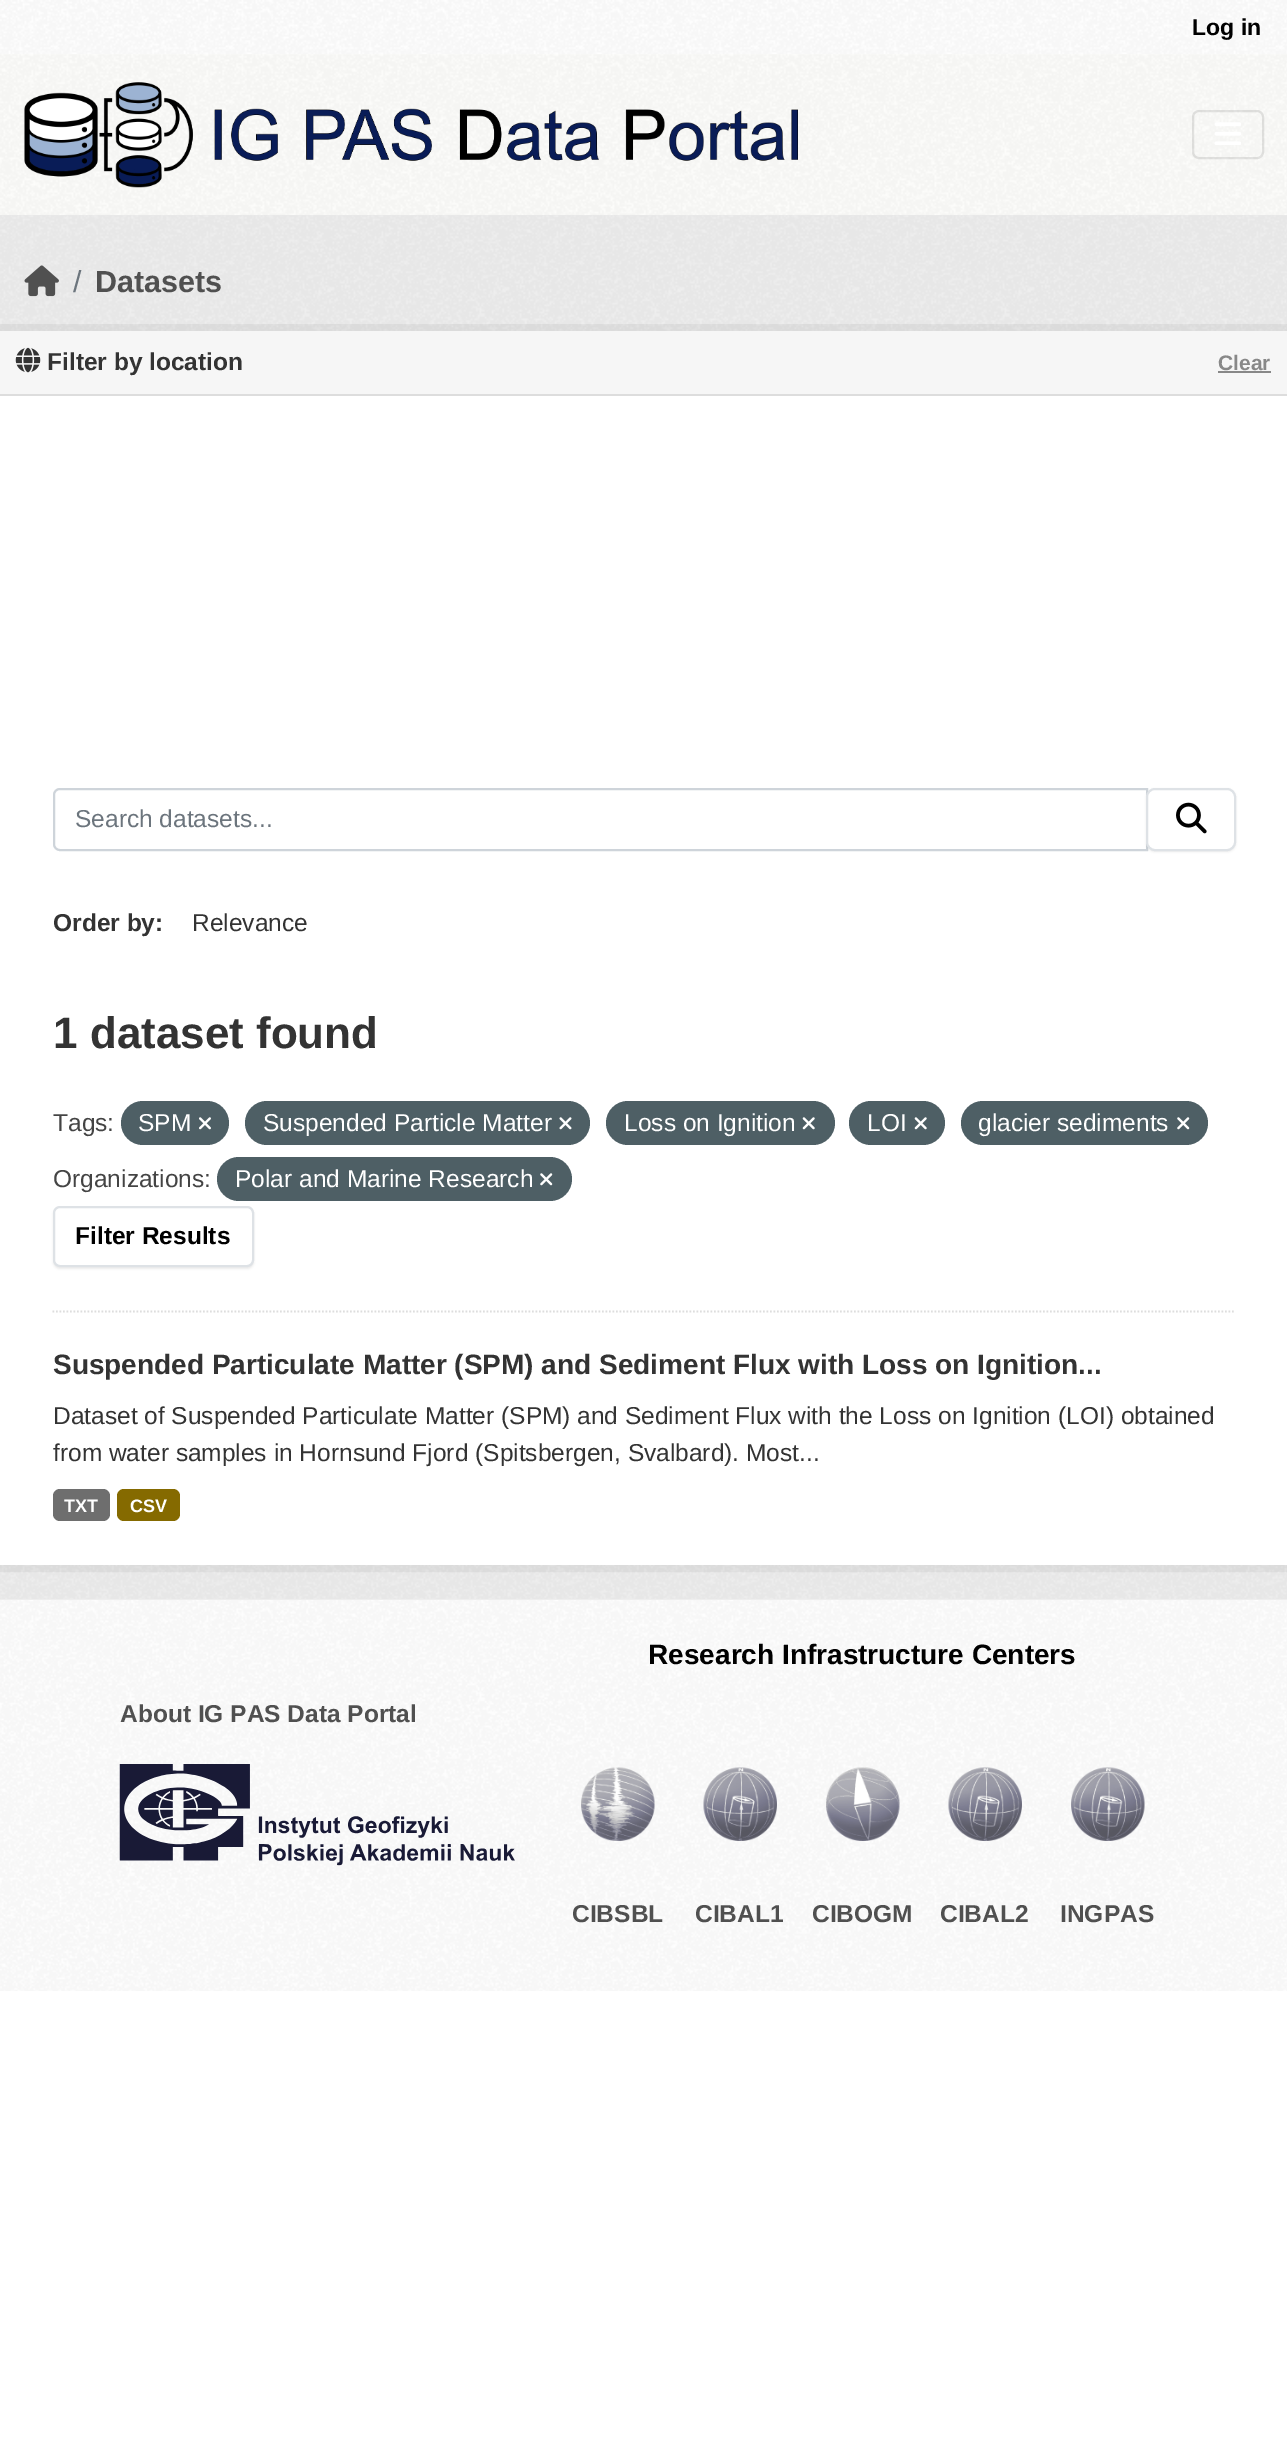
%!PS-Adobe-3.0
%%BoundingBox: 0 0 1287 2439
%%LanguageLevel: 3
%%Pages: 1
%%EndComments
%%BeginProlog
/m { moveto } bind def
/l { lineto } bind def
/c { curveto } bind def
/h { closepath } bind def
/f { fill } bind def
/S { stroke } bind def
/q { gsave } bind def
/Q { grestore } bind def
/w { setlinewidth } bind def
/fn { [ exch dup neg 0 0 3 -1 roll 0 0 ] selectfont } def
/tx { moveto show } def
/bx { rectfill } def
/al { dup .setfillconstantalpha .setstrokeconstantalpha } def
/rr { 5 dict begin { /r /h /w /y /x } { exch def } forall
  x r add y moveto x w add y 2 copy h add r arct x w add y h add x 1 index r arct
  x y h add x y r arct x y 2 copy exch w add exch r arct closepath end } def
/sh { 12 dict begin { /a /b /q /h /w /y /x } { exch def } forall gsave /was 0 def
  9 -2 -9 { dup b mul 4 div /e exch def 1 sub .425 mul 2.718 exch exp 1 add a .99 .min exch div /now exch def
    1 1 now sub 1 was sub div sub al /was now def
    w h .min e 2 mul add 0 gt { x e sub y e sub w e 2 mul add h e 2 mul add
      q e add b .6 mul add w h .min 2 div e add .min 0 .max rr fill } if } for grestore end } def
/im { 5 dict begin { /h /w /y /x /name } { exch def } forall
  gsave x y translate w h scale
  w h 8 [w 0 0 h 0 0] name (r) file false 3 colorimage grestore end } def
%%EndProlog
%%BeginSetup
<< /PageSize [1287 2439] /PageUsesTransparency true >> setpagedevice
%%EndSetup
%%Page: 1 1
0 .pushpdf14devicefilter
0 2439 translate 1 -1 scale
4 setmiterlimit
1 setgray
0 0 1287 2439 bx
(image0.raw) 0 0 1287 54 im
/LiberationSans-Bold 23 fn
0 setgray
(Log in) 1192 35 tx
0.992 0.992 0.984 setrgbcolor
0 54 1287 161 bx
(image1.raw) 0 54 1287 161 im
(image2.raw) 24 82 774 106 im
0.1 al
0 setgray
2 w
1193 111 70 47 6 rr S
1 al
(image3.raw) 1214 122 27 23 im
0.933 setgray
0 215 1287 1385 bx
(image4.raw) 0 215 1287 1384 im
(image5.raw) 24 265 35 32 im
/LiberationSans-Regular 30.5 fn
0.424 0.459 0.49 setrgbcolor
(/) 73 292 tx
/LiberationSans-Bold 30.5 fn
0.314 setgray
(Datasets) 95 292 tx
0.05 al
0 setgray
7 w
-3.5 327.5 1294 1241 rectstroke
1 al
1 setgray
0 396 1287 1169 bx
0.965 setgray
0 331 1287 63 bx
0.867 setgray
0 394 1287 2 bx
(image6.raw) 15 347 26 26 im
/LiberationSans-Bold 24.5 fn
0.2 setgray
(Filter by location) 47 370 tx
/LiberationSans-Bold 21 fn
0.533 setgray
(Clear) 1218 370 tx
1218 371 53 2 bx
0.867 setgray
1.8 w
[1.75 1.75] 0 setdash
52.5 1311.5 m 1235.5 1311.5 l S
0.808 0.831 0.855 setrgbcolor
2 w
[] 0 setdash
60 789 m 1147 789 l 1147 850 l 60 850 l 56.5 850 54 847.5 54 844 c 54 795 l 54 791.5 56.5 789 60 789 c h S
/LiberationSans-Regular 24.5 fn
0.424 0.459 0.49 setrgbcolor
(Search datasets...) 75 827 tx
0 setgray
1146 789 90 63 9 1 0.07 sh
1 setgray
1147 789 88 61 8 rr q f Q
0.871 0.886 0.902 setrgbcolor
S
(image7.raw) 1176 802 31 32 im
/LiberationSans-Bold 24.5 fn
0.2 setgray
(Order by:) 53 931 tx
/LiberationSans-Regular 24.5 fn
(Relevance) 192 931 tx
/LiberationSans-Bold 44 fn
(1 dataset found) 53 1048 tx
/LiberationSans-Regular 24.5 fn
0.267 setgray
(Tags:) 53 1131 tx
0.306 0.373 0.396 setrgbcolor
121 1101 108 44 22 rr f
1 setgray
(SPM) 138 1131 tx
(image8.raw) 199 1117 12 13 im
0.306 0.373 0.396 setrgbcolor
245 1101 345 44 22 rr f
1 setgray
(Suspended Particle Matter) 263 1131 tx
(image9.raw) 559 1117 13 13 im
0.306 0.373 0.396 setrgbcolor
606 1101 229 44 22 rr f
1 setgray
(Loss on Ignition) 624 1131 tx
(image10.raw) 802 1117 13 13 im
0.306 0.373 0.396 setrgbcolor
849 1101 96 44 22 rr f
1 setgray
(LOI) 867 1131 tx
(image10.raw) 914 1117 13 13 im
0.306 0.373 0.396 setrgbcolor
961 1101 247 44 22 rr f
1 setgray
(glacier sediments) 978 1131 tx
(image11.raw) 1177 1117 13 13 im
0.267 setgray
(Organizations:) 53 1187 tx
0.306 0.373 0.396 setrgbcolor
217 1157 355 44 22 rr f
1 setgray
(Polar and Marine Research) 235 1187 tx
(image11.raw) 540 1173 13 13 im
0 setgray
53 1208 201 61 7 1 0.07 sh
1 setgray
54 1207 199 59 6 rr q f Q
0.871 0.886 0.902 setrgbcolor
S
/LiberationSans-Bold 24.5 fn
0 setgray
(Filter Results) 75 1244 tx
/LiberationSans-Bold 28 fn
0.2 setgray
(Suspended Particulate Matter \(SPM\) and Sediment Flux with Loss on Ignition...) 53 1374 tx
/LiberationSans-Regular 24.5 fn
(Dataset of Suspended Particulate Matter \(SPM\) and Sediment Flux with the Loss on Ignition \(LOI\) obtained) 53 1424 tx
(from water samples in Hornsund Fjord \(Spitsbergen, Svalbard\). Most...) 53 1461 tx
0.431 setgray
53 1489 57 32 7 rr f
/LiberationSans-Bold 18 fn
1 setgray
(TXT) 64 1512 tx
0.522 0.416 0 setrgbcolor
117 1489 63 32 7 rr f
1 setgray
(CSV) 130 1512 tx
(image12.raw) 0 1600 1287 391 im
/LiberationSans-Bold 24.5 fn
0.314 setgray
(About IG PAS Data Portal) 120 1722 tx
(image13.raw) 119 1764 396 102 im
/LiberationSans-Bold 28 fn
0 setgray
(Research Infrastructure Centers) 648 1664 tx
(image14.raw) 581 1767 74 74 im
/LiberationSans-Bold 24.5 fn
0.314 setgray
(CIBSBL) 572 1922 tx
(image15.raw) 703 1767 74 74 im
(CIBAL1) 695 1922 tx
(image16.raw) 826 1767 74 74 im
(CIBOGM) 812 1922 tx
(image17.raw) 948 1767 74 74 im
(CIBAL2) 940 1922 tx
(image18.raw) 1071 1767 74 74 im
(INGPAS) 1060 1922 tx
.poppdf14devicefilter showpage
%%EOF
